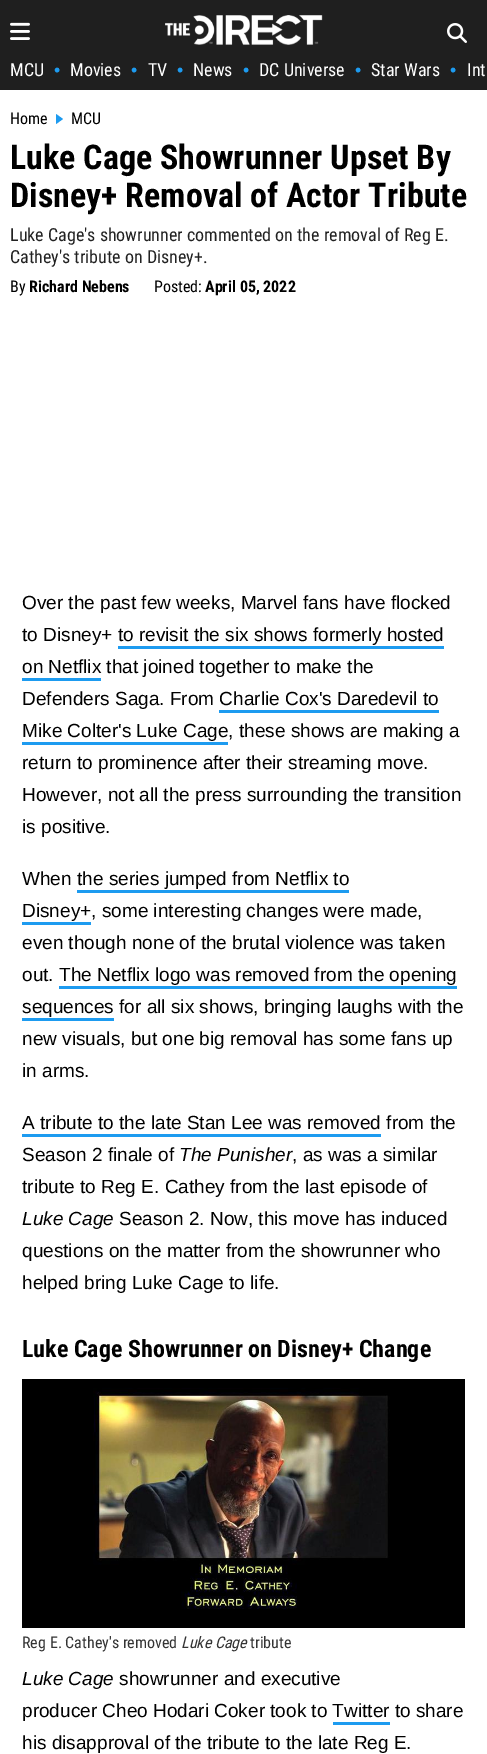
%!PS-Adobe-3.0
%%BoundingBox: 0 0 487 1754
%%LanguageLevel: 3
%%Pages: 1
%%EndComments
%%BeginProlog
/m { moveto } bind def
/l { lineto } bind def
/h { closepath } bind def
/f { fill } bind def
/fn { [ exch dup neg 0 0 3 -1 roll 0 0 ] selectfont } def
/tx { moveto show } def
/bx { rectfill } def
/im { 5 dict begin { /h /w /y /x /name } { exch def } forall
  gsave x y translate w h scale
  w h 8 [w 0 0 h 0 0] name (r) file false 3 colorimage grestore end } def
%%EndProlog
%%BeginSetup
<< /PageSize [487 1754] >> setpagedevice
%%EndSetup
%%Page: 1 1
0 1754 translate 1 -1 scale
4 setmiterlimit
1 setgray
0 0 487 1754 bx
0.122 setgray
0 0 487 90 bx
(image0.raw) 10 22 20 18 im
(image1.raw) 165 15 158 30 im
(image2.raw) 447 23 20 20 im
/RobotoCondensed-Regular 18 fn
1 setgray
(MCU) 10 76 tx
/LiberationSans-Regular 18 fn
0.114 0.608 0.941 setrgbcolor
(•) 54 76 tx
/RobotoCondensed-Regular 18 fn
1 setgray
(Movies) 70 76 tx
/LiberationSans-Regular 18 fn
0.114 0.608 0.941 setrgbcolor
(•) 131 76 tx
/RobotoCondensed-Regular 18 fn
1 setgray
(TV) 148 76 tx
/LiberationSans-Regular 18 fn
0.114 0.608 0.941 setrgbcolor
(•) 177 76 tx
/RobotoCondensed-Regular 18 fn
1 setgray
(News) 193 76 tx
/LiberationSans-Regular 18 fn
0.114 0.608 0.941 setrgbcolor
(•) 243 76 tx
/RobotoCondensed-Regular 18 fn
1 setgray
(DC Universe) 259 76 tx
/LiberationSans-Regular 18 fn
0.114 0.608 0.941 setrgbcolor
(•) 355 76 tx
/RobotoCondensed-Regular 18 fn
1 setgray
(Star Wars) 371 76 tx
/LiberationSans-Regular 18 fn
0.114 0.608 0.941 setrgbcolor
(•) 450 76 tx
/RobotoCondensed-Regular 18 fn
1 setgray
(Int) 467 76 tx
/RobotoCondensed-Regular 16 fn
0 setgray
(Home) 10 124 tx
0.114 0.608 0.941 setrgbcolor
56 124 m 56 114 l 63 119 l h f
0 setgray
(MCU) 71 124 tx
/RobotoCondensed-Bold 34 fn
(Luke Cage Showrunner Upset By) 10 169 tx
(Disney+ Removal of Actor Tribute) 10 207 tx
/RobotoCondensed-Regular 18 fn
0.133 setgray
(Luke Cage's showrunner commented on the removal of Reg E.) 10 241 tx
(Cathey's tribute on Disney+.) 10 263 tx
/RobotoCondensed-Regular 16 fn
0 setgray
(By) 10 292 tx
/RobotoCondensed-Bold 16 fn
(Richard Nebens) 29 292 tx
/RobotoCondensed-Regular 16 fn
(Posted:) 154 292 tx
/RobotoCondensed-Bold 16 fn
(April 05, 2022) 205 292 tx
/LiberationSans-Regular 19 fn
(Over the past few weeks, Marvel fans have flocked) 22 609 tx
(to Disney+ to revisit the six shows formerly hosted) 22 641 tx
(on Netflix that joined together to make the) 22 673 tx
0.114 0.608 0.941 setrgbcolor
118 646 326 3 bx
22 678 79 3 bx
0 setgray
(Defenders Saga. From Charlie Cox's Daredevil to) 22 705 tx
(Mike Colter's Luke Cage, these shows are making a) 22 737 tx
0.114 0.608 0.941 setrgbcolor
219 710 220 3 bx
22 742 206 3 bx
0 setgray
(return to prominence after their streaming move.) 22 769 tx
(However, not all the press surrounding the transition) 22 801 tx
(is positive.) 22 833 tx
(When the series jumped from Netflix to) 22 885 tx
(Disney+, some interesting changes were made,) 22 917 tx
0.114 0.608 0.941 setrgbcolor
77 890 272 3 bx
22 922 69 3 bx
0 setgray
(even though none of the brutal violence was taken) 22 949 tx
(out. The Netflix logo was removed from the opening) 22 981 tx
(sequences for all six shows, bringing laughs with the) 22 1013 tx
0.114 0.608 0.941 setrgbcolor
59 986 398 3 bx
22 1018 92 3 bx
0 setgray
(new visuals, but one big removal has some fans up) 22 1045 tx
(in arms.) 22 1077 tx
(A tribute to the late Stan Lee was removed from the) 22 1129 tx
0.114 0.608 0.941 setrgbcolor
22 1134 359 3 bx
0 setgray
(Season 2 finale of) 22 1161 tx
/LiberationSans-Italic 19 fn
(The Punisher) 179 1161 tx
/LiberationSans-Regular 19 fn
(, as was a similar) 292 1161 tx
(tribute to Reg E. Cathey from the last episode of) 22 1193 tx
/LiberationSans-Italic 19 fn
(Luke Cage) 22 1225 tx
/LiberationSans-Regular 19 fn
(Season 2. Now, this move has induced) 119 1225 tx
(questions on the matter from the showrunner who) 22 1257 tx
(helped bring Luke Cage to life.) 22 1289 tx
/RobotoCondensed-Bold 24 fn
(Luke Cage Showrunner on Disney+ Change) 22 1357 tx
(image3.raw) 22 1379 443 249 im
/RobotoCondensed-Regular 16 fn
0.204 setgray
(Reg E. Cathey's removed) 22 1648 tx
/RobotoCondensed-Italic 16 fn
(Luke Cage) 181 1648 tx
/RobotoCondensed-Regular 16 fn
(tribute) 250 1648 tx
/LiberationSans-Italic 19 fn
0 setgray
(Luke Cage) 22 1685 tx
/LiberationSans-Regular 19 fn
(showrunner and executive) 119 1685 tx
(producer Cheo Hodari Coker took to Twitter to share) 22 1717 tx
0.114 0.608 0.941 setrgbcolor
333 1722 57 3 bx
0 setgray
(his disapproval of the tribute to the late Reg E.) 22 1749 tx
showpage
%%EOF
